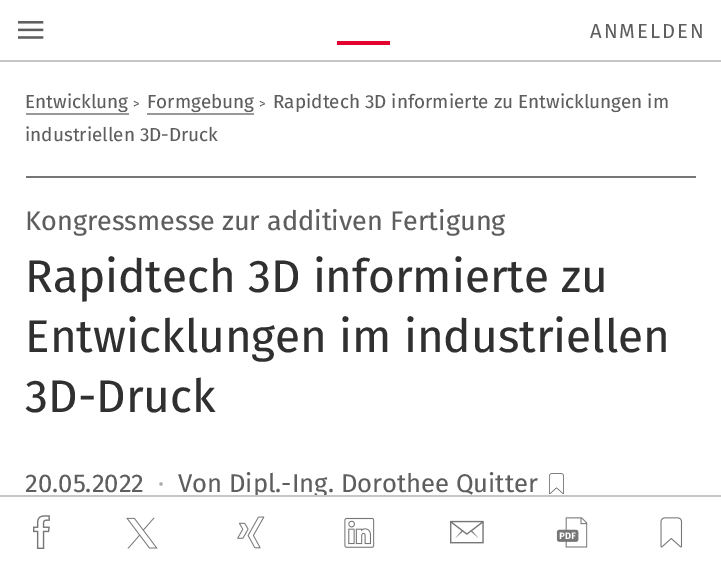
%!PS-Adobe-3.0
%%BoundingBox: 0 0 721 569
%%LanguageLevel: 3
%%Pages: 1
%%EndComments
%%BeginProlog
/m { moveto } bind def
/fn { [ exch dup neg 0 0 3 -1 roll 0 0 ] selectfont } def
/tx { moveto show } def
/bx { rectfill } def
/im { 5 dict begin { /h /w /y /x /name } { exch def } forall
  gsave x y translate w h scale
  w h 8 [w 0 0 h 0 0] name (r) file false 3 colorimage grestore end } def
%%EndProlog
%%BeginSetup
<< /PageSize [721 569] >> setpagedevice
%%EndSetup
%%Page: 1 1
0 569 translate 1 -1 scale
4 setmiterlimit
1 setgray
0 0 721 569 bx
0.776 setgray
0 60 721 2 bx
(image0.raw) 18 21 26 18 im
/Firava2-Regular 20.25 fn
0.369 setgray
590 38 m 2 0 (ANMELDEN) ashow
0.89 0.012 0.18 setrgbcolor
337 41 53 4 bx
0.463 setgray
26 176 670 2 bx
/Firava-Regular 18.9 fn
0.369 setgray
(Entwicklung) 25 108 tx
0.596 setgray
26 113 103 2 bx
/Firava-Regular 13 fn
0.369 setgray
(>) 133 108 tx
/Firava-Regular 18.9 fn
(Formgebung) 147 108 tx
0.596 setgray
147 113 107 2 bx
/Firava-Regular 13 fn
0.369 setgray
(>) 259 108 tx
/Firava-Regular 18.9 fn
(Rapidtech 3D informierte zu Entwicklungen im) 273 108 tx
(industriellen 3D-Druck) 25 141 tx
/Firava-Regular 27 fn
(Kongressmesse zur additiven Fertigung) 25 230 tx
/Firava-Regular 45.9 fn
0.188 setgray
(Rapidtech 3D informierte zu) 25 292 tx
(Entwicklungen im industriellen) 25 352 tx
(3D-Druck) 25 412 tx
/Firava-Regular 25.6 fn
0.369 setgray
(20.05.2022) 25 492 tx
0.671 setgray
(·) 158 492 tx
0.369 setgray
(Von Dipl.-Ing. Dorothee Quitter) 178 492 tx
(image1.raw) 549 473 15 22 im
1 setgray
254 497 70 1 bx
0.776 setgray
0 495 721 2 bx
(image2.raw) 33 515 17 34 im
(image3.raw) 126 517 32 32 im
(image4.raw) 237 516 28 33 im
(image5.raw) 344 517 31 31 im
(image6.raw) 450 520 34 24 im
(image7.raw) 556 517 32 31 im
(image8.raw) 660 517 23 31 im
showpage
%%EOF
